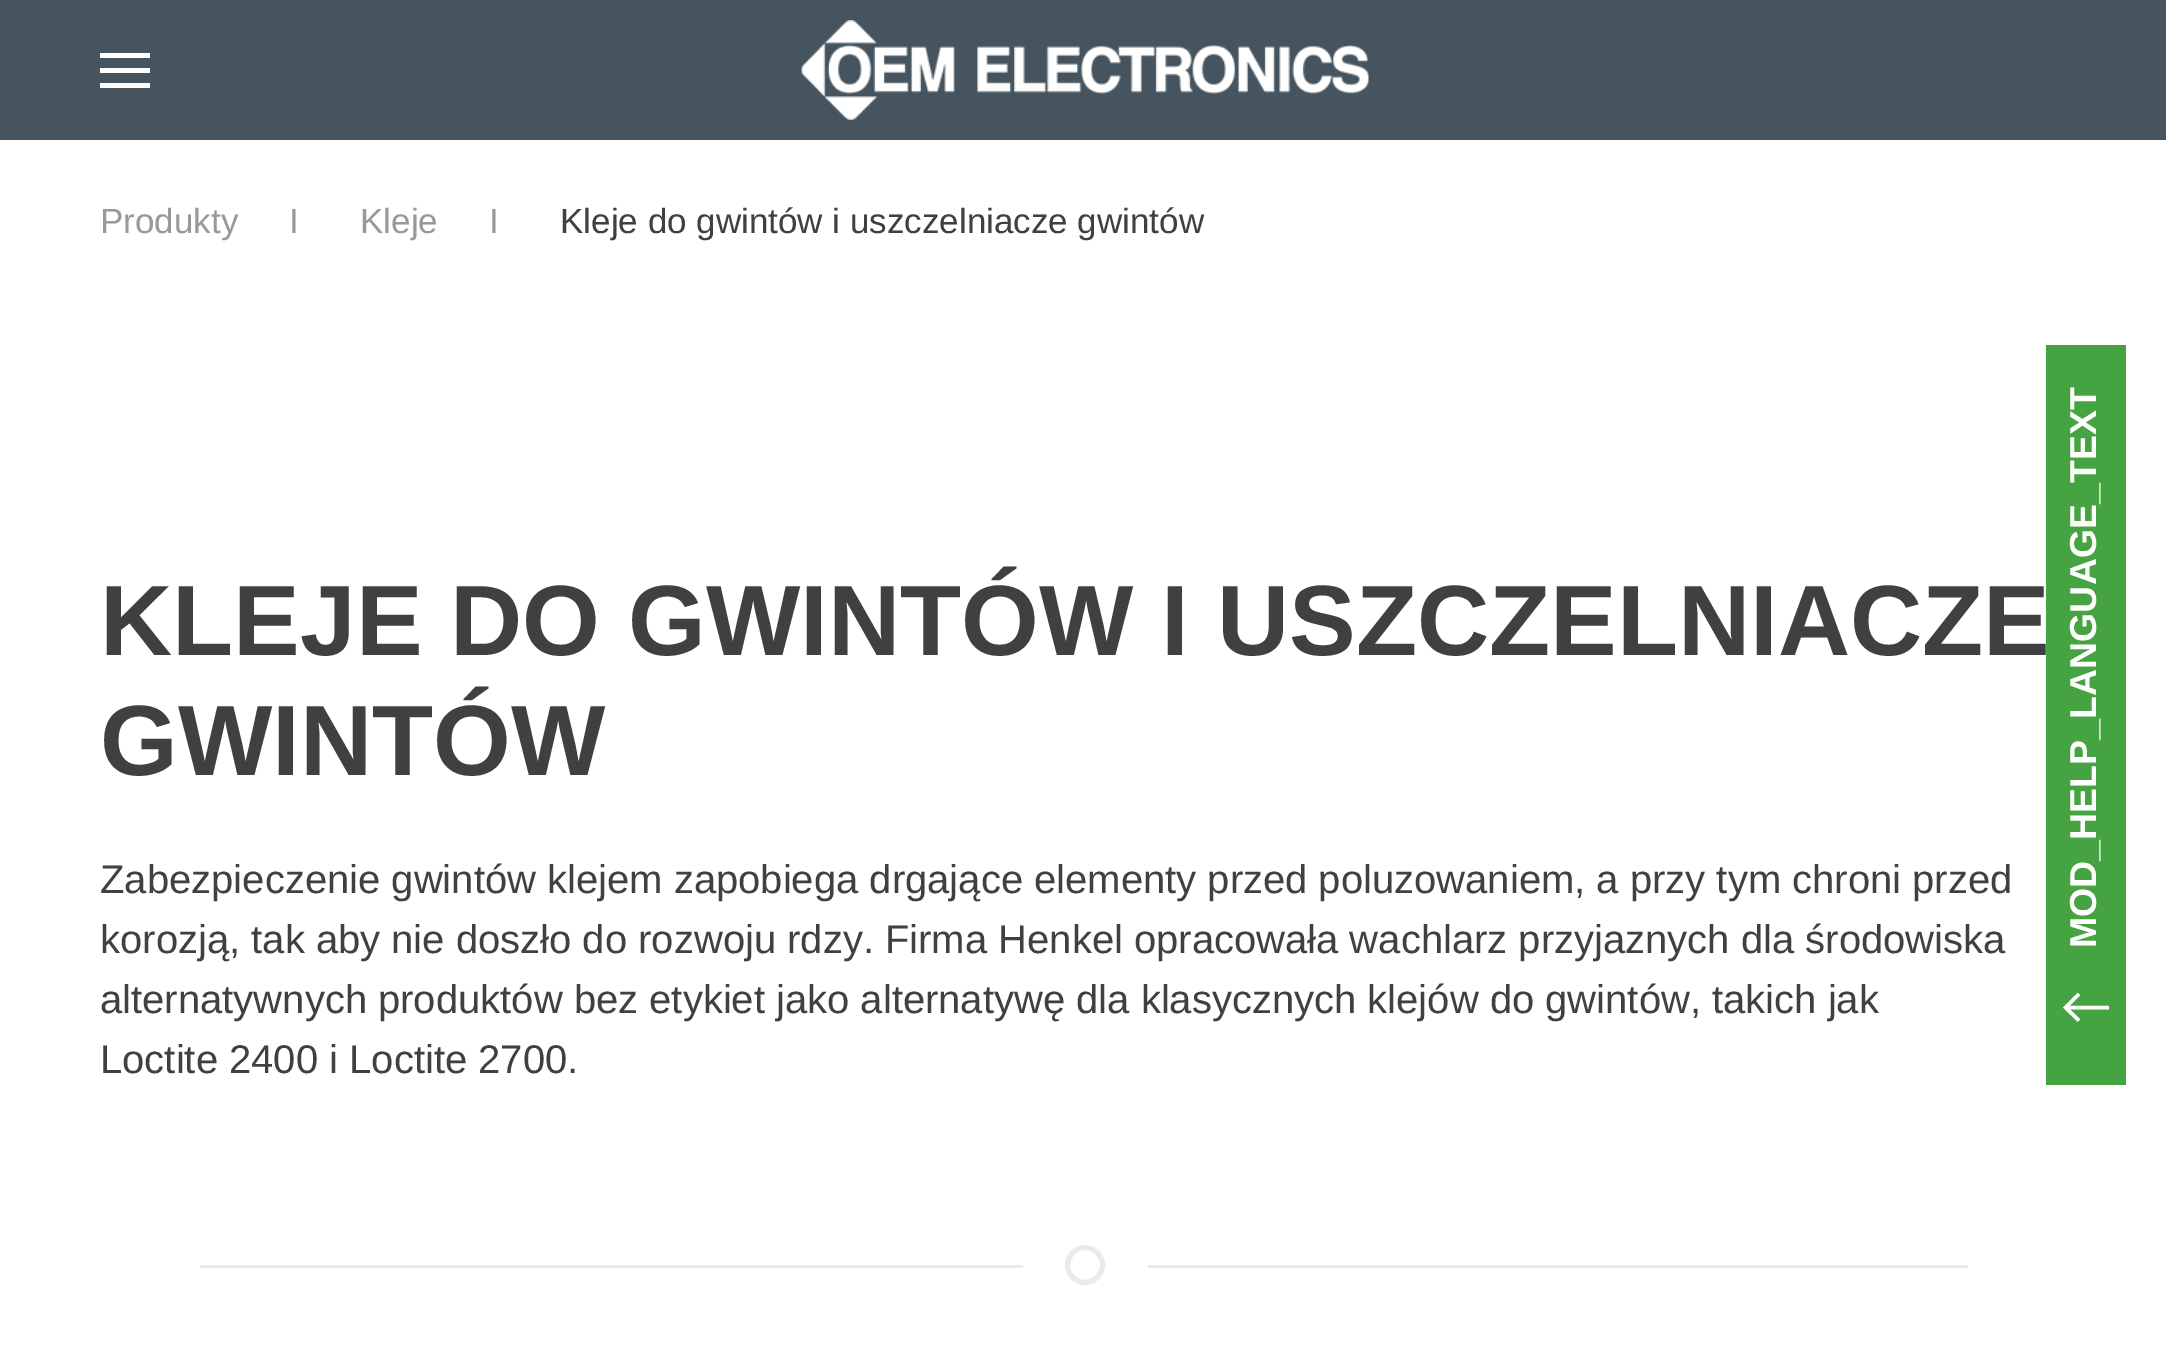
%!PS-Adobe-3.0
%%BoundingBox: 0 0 2166 1349
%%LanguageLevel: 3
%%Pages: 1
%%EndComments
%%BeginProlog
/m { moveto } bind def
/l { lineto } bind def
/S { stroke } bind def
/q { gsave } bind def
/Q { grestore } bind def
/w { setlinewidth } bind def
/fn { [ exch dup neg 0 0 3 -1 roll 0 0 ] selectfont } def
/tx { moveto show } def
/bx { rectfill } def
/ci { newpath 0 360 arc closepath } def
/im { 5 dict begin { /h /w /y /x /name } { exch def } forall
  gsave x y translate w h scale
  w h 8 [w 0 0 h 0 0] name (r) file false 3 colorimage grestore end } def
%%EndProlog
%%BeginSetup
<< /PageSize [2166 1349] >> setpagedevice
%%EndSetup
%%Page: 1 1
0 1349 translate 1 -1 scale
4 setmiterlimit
1 setgray
0 0 2166 1349 bx
0.271 0.329 0.369 setrgbcolor
0 0 2166 140 bx
1 setgray
100 53 50 5 bx
100 68 50 5 bx
100 83 50 5 bx
(image0.raw) 801 20 568 100 im
/LiberationSans-Regular 35 fn
0.6 setgray
(Produkty) 100 233 tx
(I) 289 233 tx
(Kleje) 360 233 tx
(I) 489 233 tx
0.251 0.251 0.259 setrgbcolor
(Kleje do gwintów i uszczelniacze gwintów) 560 233 tx
/LiberationSans-Bold 100 fn
(KLEJE DO GWINTÓW I USZCZELNIACZE) 100 655 tx
(GWINTÓW) 100 775 tx
/LiberationSans-Regular 40 fn
(Zabezpieczenie gwintów klejem zapobiega drgające elementy przed poluzowaniem, a przy tym chroni przed) 100 893 tx
(korozją, tak aby nie doszło do rozwoju rdzy. Firma Henkel opracowała wachlarz przyjaznych dla środowiska) 100 953 tx
(alternatywnych produktów bez etykiet jako alternatywę dla klasycznych klejów do gwintów, takich jak) 100 1013 tx
(Loctite 2400 i Loctite 2700.) 100 1073 tx
0.918 setgray
5 w
1085 1265 17.5 ci S
200 1265 823 3 bx
1148 1265 820 3 bx
0.271 0.643 0.255 setrgbcolor
2046 345 80 740 bx
/LiberationSans-Bold 37.5 fn
1 setgray
q 2096 948 translate -90 rotate 0 0 m (MOD_HELP_LANGUAGE_TEXT) show Q
3.5 w
2109 1007.5 m 2067 1007.5 l 2079 994 m 2065.5 1007.5 l 2079 1020.5 l S
showpage
%%EOF
